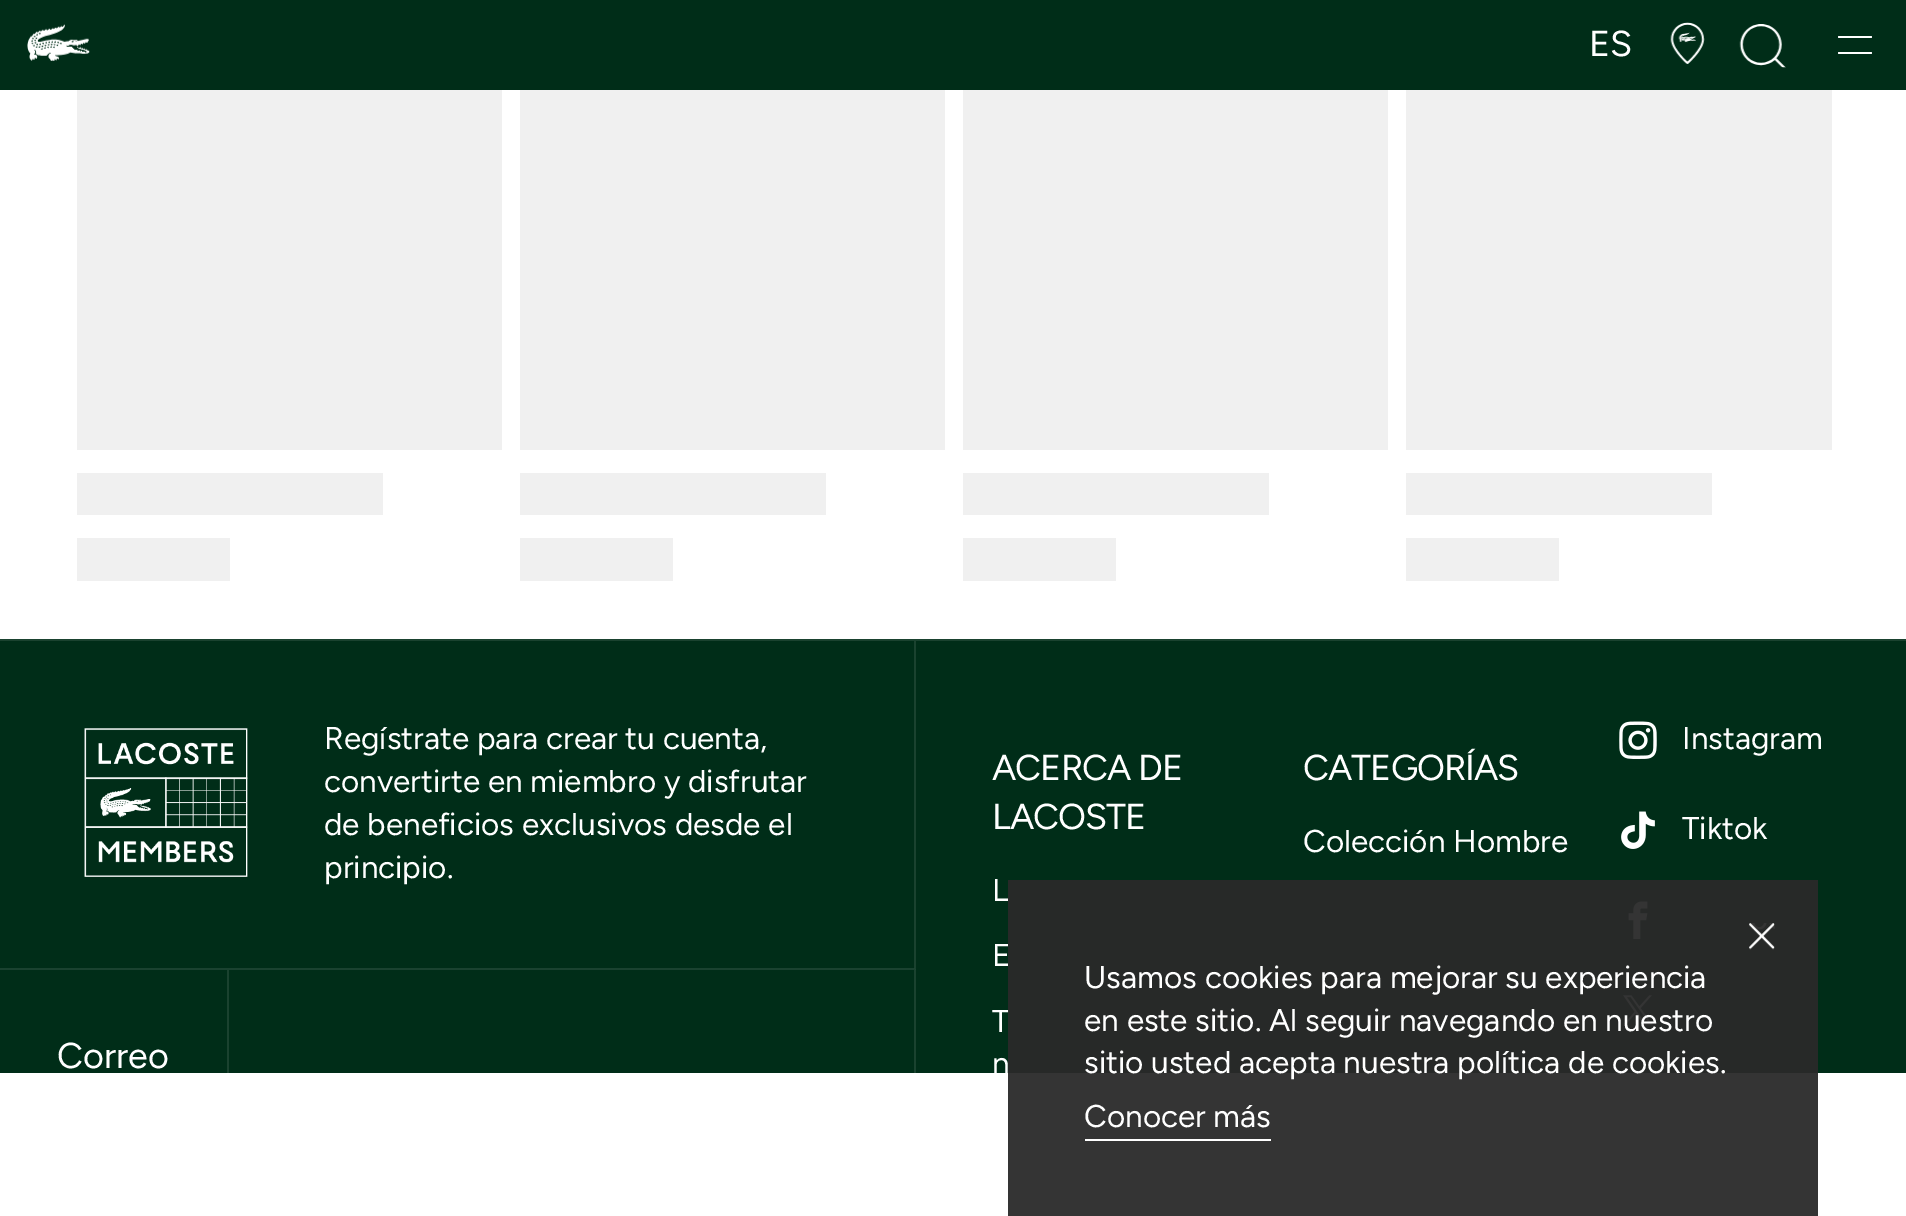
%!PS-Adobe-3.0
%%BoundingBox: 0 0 1906 1216
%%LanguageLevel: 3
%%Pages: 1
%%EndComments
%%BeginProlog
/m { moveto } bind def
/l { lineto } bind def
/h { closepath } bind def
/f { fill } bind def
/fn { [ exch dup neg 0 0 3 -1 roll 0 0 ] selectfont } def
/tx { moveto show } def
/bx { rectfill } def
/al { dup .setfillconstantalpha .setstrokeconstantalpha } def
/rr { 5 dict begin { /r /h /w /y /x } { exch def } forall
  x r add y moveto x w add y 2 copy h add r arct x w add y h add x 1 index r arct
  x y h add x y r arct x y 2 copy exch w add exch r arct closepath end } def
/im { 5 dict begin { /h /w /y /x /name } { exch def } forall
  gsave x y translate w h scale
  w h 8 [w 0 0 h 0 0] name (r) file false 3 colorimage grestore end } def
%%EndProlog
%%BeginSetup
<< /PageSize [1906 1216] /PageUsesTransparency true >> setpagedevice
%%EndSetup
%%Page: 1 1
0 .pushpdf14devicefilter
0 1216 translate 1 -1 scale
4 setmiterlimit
1 setgray
0 0 1906 1216 bx
0 0.176 0.094 setrgbcolor
0 0 1906 90 bx
(image0.raw) 27 24 63 37 im
/Figtree-Regular 36 fn
1 setgray
(ES) 1589 56 tx
(image1.raw) 1670 22 35 42 im
(image2.raw) 1739 24 47 44 im
1838 36 34 2 1 rr f
1838 52 34 2 1 rr f
0.941 setgray
77 90 425 360 bx
77 473 306 42 bx
77 538 153 43 bx
520 90 425 360 bx
520 473 306 42 bx
520 538 153 43 bx
963 90 425 360 bx
963 473 306 42 bx
963 538 153 43 bx
1406 90 426 360 bx
1406 473 306 42 bx
1406 538 153 43 bx
0 0.176 0.094 setrgbcolor
0 641 1906 432 bx
0.102 0.259 0.184 setrgbcolor
0 639 1906 2 bx
916 641 m 916 970 l 914 968 l 914 641 l h f
0.1 al
1 setgray
916 970 m 0 970 l 0 968 l 914 968 l h f
1 al
(image3.raw) 84 728 164 149 im
/Figtree-Regular 31.5 fn
(Regístrate para crear tu cuenta,) 324 749 tx
(convertirte en miembro y disfrutar) 324 792 tx
(de beneficios exclusivos desde el) 324 835 tx
(principio.) 324 878 tx
0.102 0.259 0.184 setrgbcolor
914 970 2 103 bx
227 970 2 103 bx
/Figtree-Regular 36 fn
1 setgray
(Correo) 57 1068 tx
992 780 m -1 0 (ACERCA DE) ashow
992 829 m -1 0 (LACOSTE) ashow
/Figtree-Regular 31.5 fn
(L) 992 901 tx
(E) 992 966 tx
(T) 992 1032 tx
(n) 992 1074 tx
/Figtree-Regular 36 fn
1303 780 m -1 0 (CATEGORÍAS) ashow
/Figtree-Regular 31.5 fn
(Colección Hombre) 1303 852 tx
(image4.raw) 1619 721 38 38 im
(Instagram) 1682 749 tx
(image5.raw) 1621 811 34 38 im
(Tiktok) 1682 839 tx
(image6.raw) 1628 901 20 38 im
(image7.raw) 1623 995 30 31 im
0.95 al
0.161 setgray
1008 880 810 336 bx
1 al
(image8.raw) 1749 923 26 27 im
1 setgray
(Usamos cookies para mejorar su experiencia) 1084 988 tx
(en este sitio. Al seguir navegando en nuestro) 1084 1031 tx
(sitio usted acepta nuestra política de cookies.) 1084 1073 tx
(Conocer más) 1084 1127 tx
1085 1139 186 2 bx
.poppdf14devicefilter showpage
%%EOF
